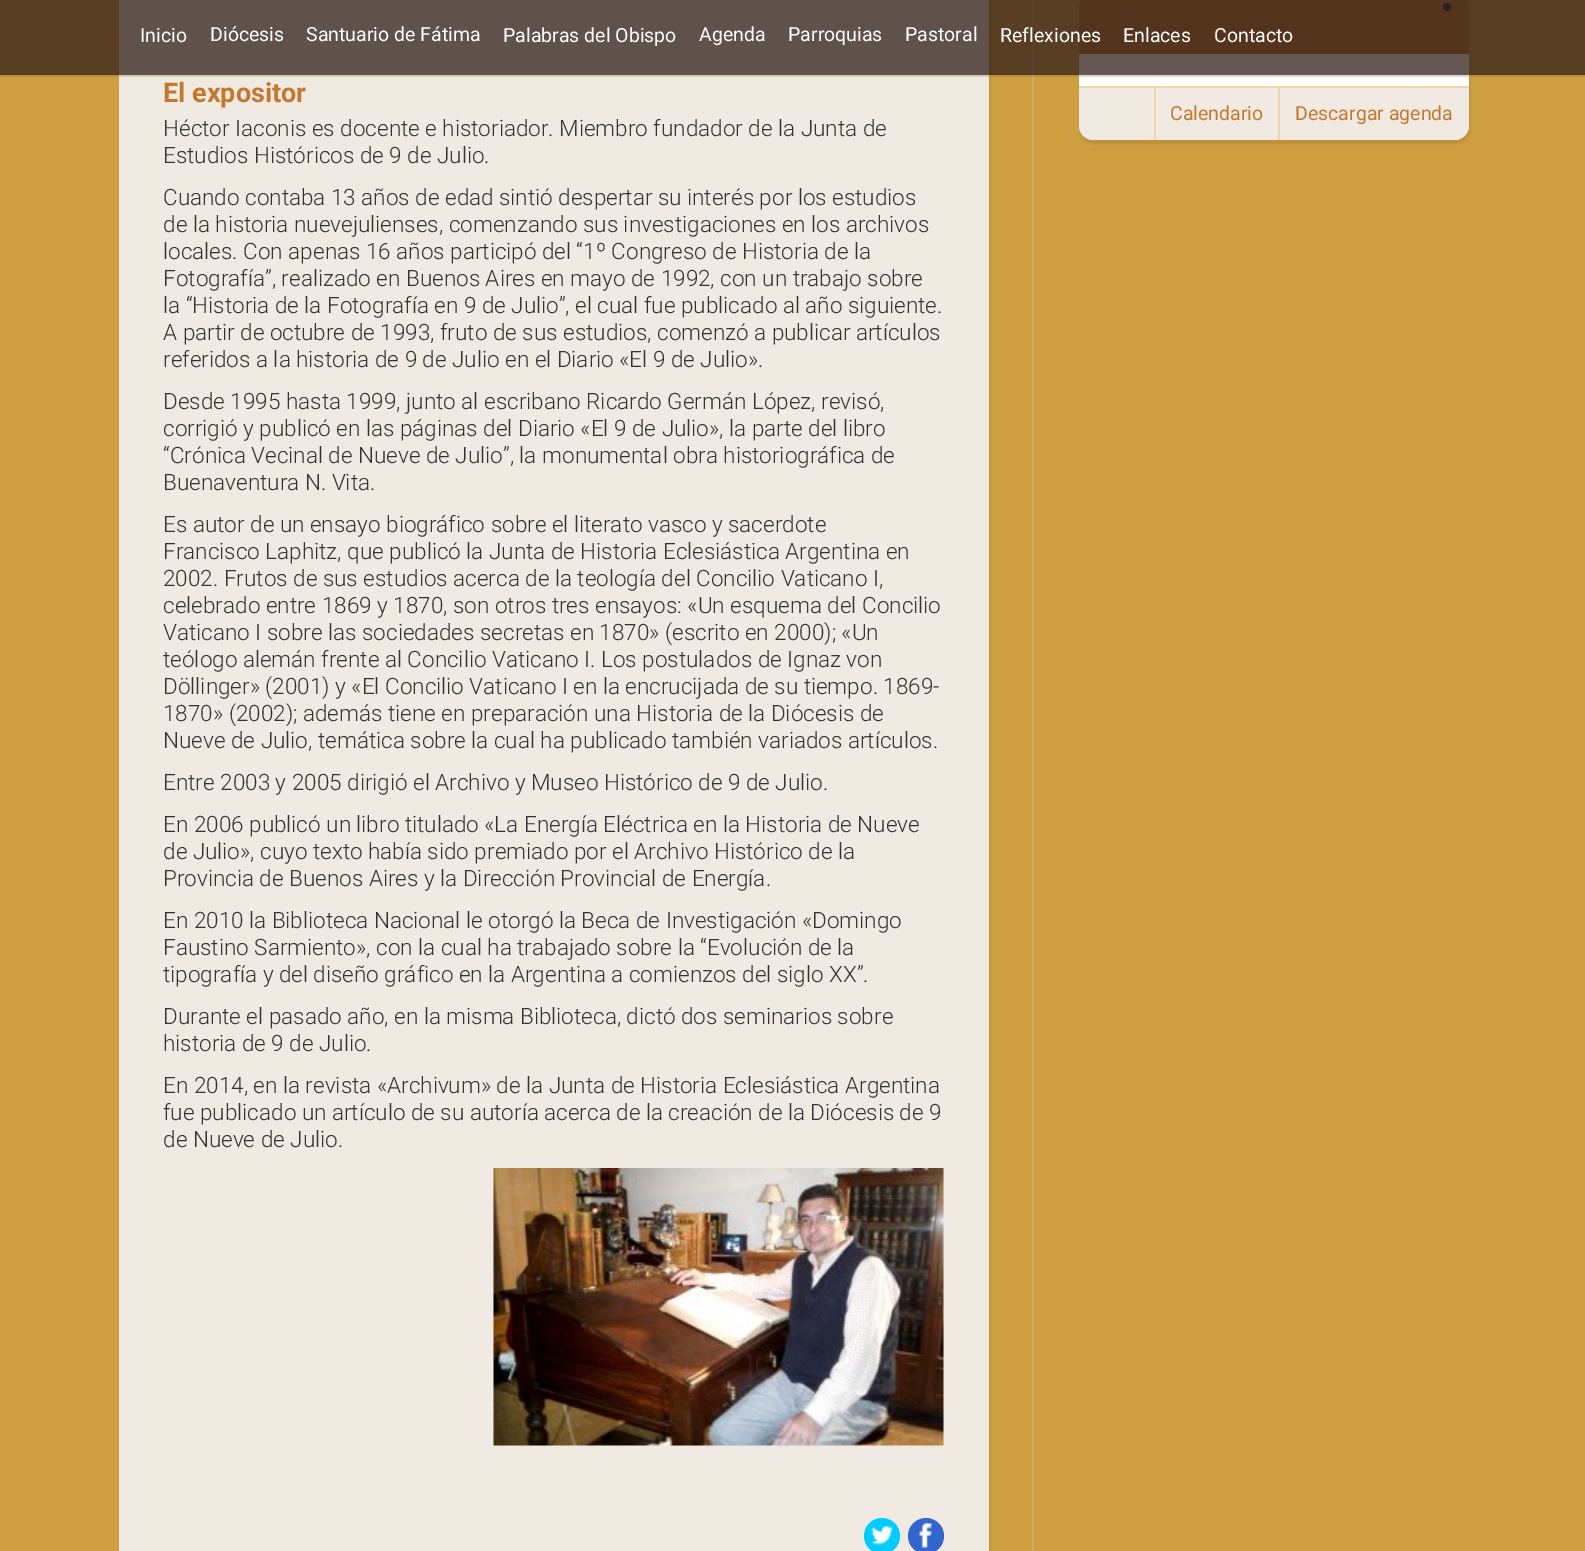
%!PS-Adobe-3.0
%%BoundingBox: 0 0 1585 1551
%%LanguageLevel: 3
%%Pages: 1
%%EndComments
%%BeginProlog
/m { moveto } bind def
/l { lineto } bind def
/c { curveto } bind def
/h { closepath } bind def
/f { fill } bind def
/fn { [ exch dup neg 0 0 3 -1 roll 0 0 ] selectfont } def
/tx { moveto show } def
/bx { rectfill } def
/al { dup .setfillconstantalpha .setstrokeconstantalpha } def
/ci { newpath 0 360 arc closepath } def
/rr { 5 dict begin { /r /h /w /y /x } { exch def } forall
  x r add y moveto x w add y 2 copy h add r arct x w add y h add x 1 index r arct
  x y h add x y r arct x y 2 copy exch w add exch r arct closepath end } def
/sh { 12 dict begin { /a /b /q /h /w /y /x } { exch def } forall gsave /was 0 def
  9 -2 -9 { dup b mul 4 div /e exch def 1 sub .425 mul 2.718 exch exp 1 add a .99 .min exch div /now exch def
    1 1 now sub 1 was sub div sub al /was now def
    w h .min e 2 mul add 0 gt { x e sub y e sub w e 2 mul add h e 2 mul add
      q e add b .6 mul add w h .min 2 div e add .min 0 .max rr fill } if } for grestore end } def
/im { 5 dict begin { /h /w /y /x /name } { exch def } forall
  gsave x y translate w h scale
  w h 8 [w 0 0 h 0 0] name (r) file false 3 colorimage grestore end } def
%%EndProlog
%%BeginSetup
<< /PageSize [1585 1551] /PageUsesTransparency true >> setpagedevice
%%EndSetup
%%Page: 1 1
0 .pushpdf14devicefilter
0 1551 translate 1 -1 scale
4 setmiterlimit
0.804 0.624 0.255 setrgbcolor
0 0 1585 1551 bx
0.804 0.675 0.412 setrgbcolor
1032 0 2 1551 bx
0.188 0.075 0.047 setrgbcolor
120 -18 870 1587 15 1 0.1 sh
0.941 0.918 0.886 setrgbcolor
119 0 870 1551 bx
0.188 0.075 0.047 setrgbcolor
1080 -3 390 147 15 1 0.1 sh
1 setgray
1079 -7 390 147 15 rr f
0.25 al
0.545 0.38 0.141 setrgbcolor
0 75 1585 2 bx
1 al
0.769 0.467 0.18 setrgbcolor
1094 -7 m 1454 -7 l 1462.5 -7 1469 -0.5 1469 8 c 1469 54 l 1079 54 l 1079 8 l 1079 -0.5 1085.5 -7 1094 -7 c h f
0.129 setgray
1447 7 4 ci f
0.5 al
0.2 setgray
0 0 1585 75 bx
0.188 0.078 0.047 setrgbcolor
0 0 1585 75 bx
/Roboto-Regular 19.5 fn
1 al
1 setgray
(Inicio) 140 42 tx
(Diócesis) 210 41 tx
(Santuario de Fátima) 306 41 tx
(Palabras del Obispo) 503 42 tx
(Agenda) 699 41 tx
(Parroquias) 788 41 tx
(Pastoral) 905 41 tx
(Reflexiones) 1000 42 tx
(Enlaces) 1123 42 tx
(Contacto) 1214 42 tx
/Roboto-Bold 27 fn
0.769 0.467 0.18 setrgbcolor
(El expositor) 163 102 tx
/Roboto-Light 22.5 fn
0.2 setgray
(Héctor Iaconis es docente e historiador. Miembro fundador de la Junta de) 163 136 tx
(Estudios Históricos de 9 de Julio.) 163 163 tx
(Cuando contaba 13 años de edad sintió despertar su interés por los estudios) 163 205 tx
(de la historia nuevejulienses, comenzando sus investigaciones en los archivos) 163 232 tx
(locales. Con apenas 16 años participó del “1º Congreso de Historia de la) 163 259 tx
(Fotografía”, realizado en Buenos Aires en mayo de 1992, con un trabajo sobre) 163 286 tx
(la “Historia de la Fotografía en 9 de Julio”, el cual fue publicado al año siguiente.) 163 313 tx
(A partir de octubre de 1993, fruto de sus estudios, comenzó a publicar artículos) 163 340 tx
(referidos a la historia de 9 de Julio en el Diario «El 9 de Julio».) 163 367 tx
(Desde 1995 hasta 1999, junto al escribano Ricardo Germán López, revisó,) 163 409 tx
(corrigió y publicó en las páginas del Diario «El 9 de Julio», la parte del libro) 163 436 tx
(“Crónica Vecinal de Nueve de Julio”, la monumental obra historiográfica de) 163 463 tx
(Buenaventura N. Vita.) 163 490 tx
(Es autor de un ensayo biográfico sobre el literato vasco y sacerdote) 163 532 tx
(Francisco Laphitz, que publicó la Junta de Historia Eclesiástica Argentina en) 163 559 tx
(2002. Frutos de sus estudios acerca de la teología del Concilio Vaticano I,) 163 586 tx
(celebrado entre 1869 y 1870, son otros tres ensayos: «Un esquema del Concilio) 163 613 tx
(Vaticano I sobre las sociedades secretas en 1870» \(escrito en 2000\); «Un) 163 640 tx
(teólogo alemán frente al Concilio Vaticano I. Los postulados de Ignaz von) 163 667 tx
(Döllinger» \(2001\) y «El Concilio Vaticano I en la encrucijada de su tiempo. 1869-) 163 694 tx
(1870» \(2002\); además tiene en preparación una Historia de la Diócesis de) 163 721 tx
(Nueve de Julio, temática sobre la cual ha publicado también variados artículos.) 163 748 tx
(Entre 2003 y 2005 dirigió el Archivo y Museo Histórico de 9 de Julio.) 163 790 tx
(En 2006 publicó un libro titulado «La Energía Eléctrica en la Historia de Nueve) 163 832 tx
(de Julio», cuyo texto había sido premiado por el Archivo Histórico de la) 163 859 tx
(Provincia de Buenos Aires y la Dirección Provincial de Energía.) 163 886 tx
(En 2010 la Biblioteca Nacional le otorgó la Beca de Investigación «Domingo) 163 928 tx
(Faustino Sarmiento», con la cual ha trabajado sobre la “Evolución de la) 163 955 tx
(tipografía y del diseño gráfico en la Argentina a comienzos del siglo XX”.) 163 982 tx
(Durante el pasado año, en la misma Biblioteca, dictó dos seminarios sobre) 163 1024 tx
(historia de 9 de Julio.) 163 1051 tx
(En 2014, en la revista «Archivum» de la Junta de Historia Eclesiástica Argentina) 163 1093 tx
(fue publicado un artículo de su autoría acerca de la creación de la Diócesis de 9) 163 1120 tx
(de Nueve de Julio.) 163 1147 tx
(image0.raw) 493 1168 451 278 im
0 0.8 1 setrgbcolor
882 1536 18 ci f
(image1.raw) 871 1526 22 19 im
0.2 0.4 0.8 setrgbcolor
926 1536 18 ci f
(image2.raw) 919 1522 13 26 im
0.941 0.918 0.886 setrgbcolor
1079 86 m 1469 86 l 1469 125 l 1469 133.5 1462.5 140 1454 140 c 1094 140 l 1085.5 140 1079 133.5 1079 125 c h f
0.941 0.827 0.659 setrgbcolor
1079 86 390 2 bx
1154 87 2 53 bx
/Roboto-Regular 19.5 fn
0.769 0.467 0.18 setrgbcolor
(Calendario) 1170 120 tx
0.941 0.827 0.659 setrgbcolor
1278 87 2 53 bx
0.769 0.467 0.18 setrgbcolor
(Descargar agenda) 1295 120 tx
.poppdf14devicefilter showpage
%%EOF
